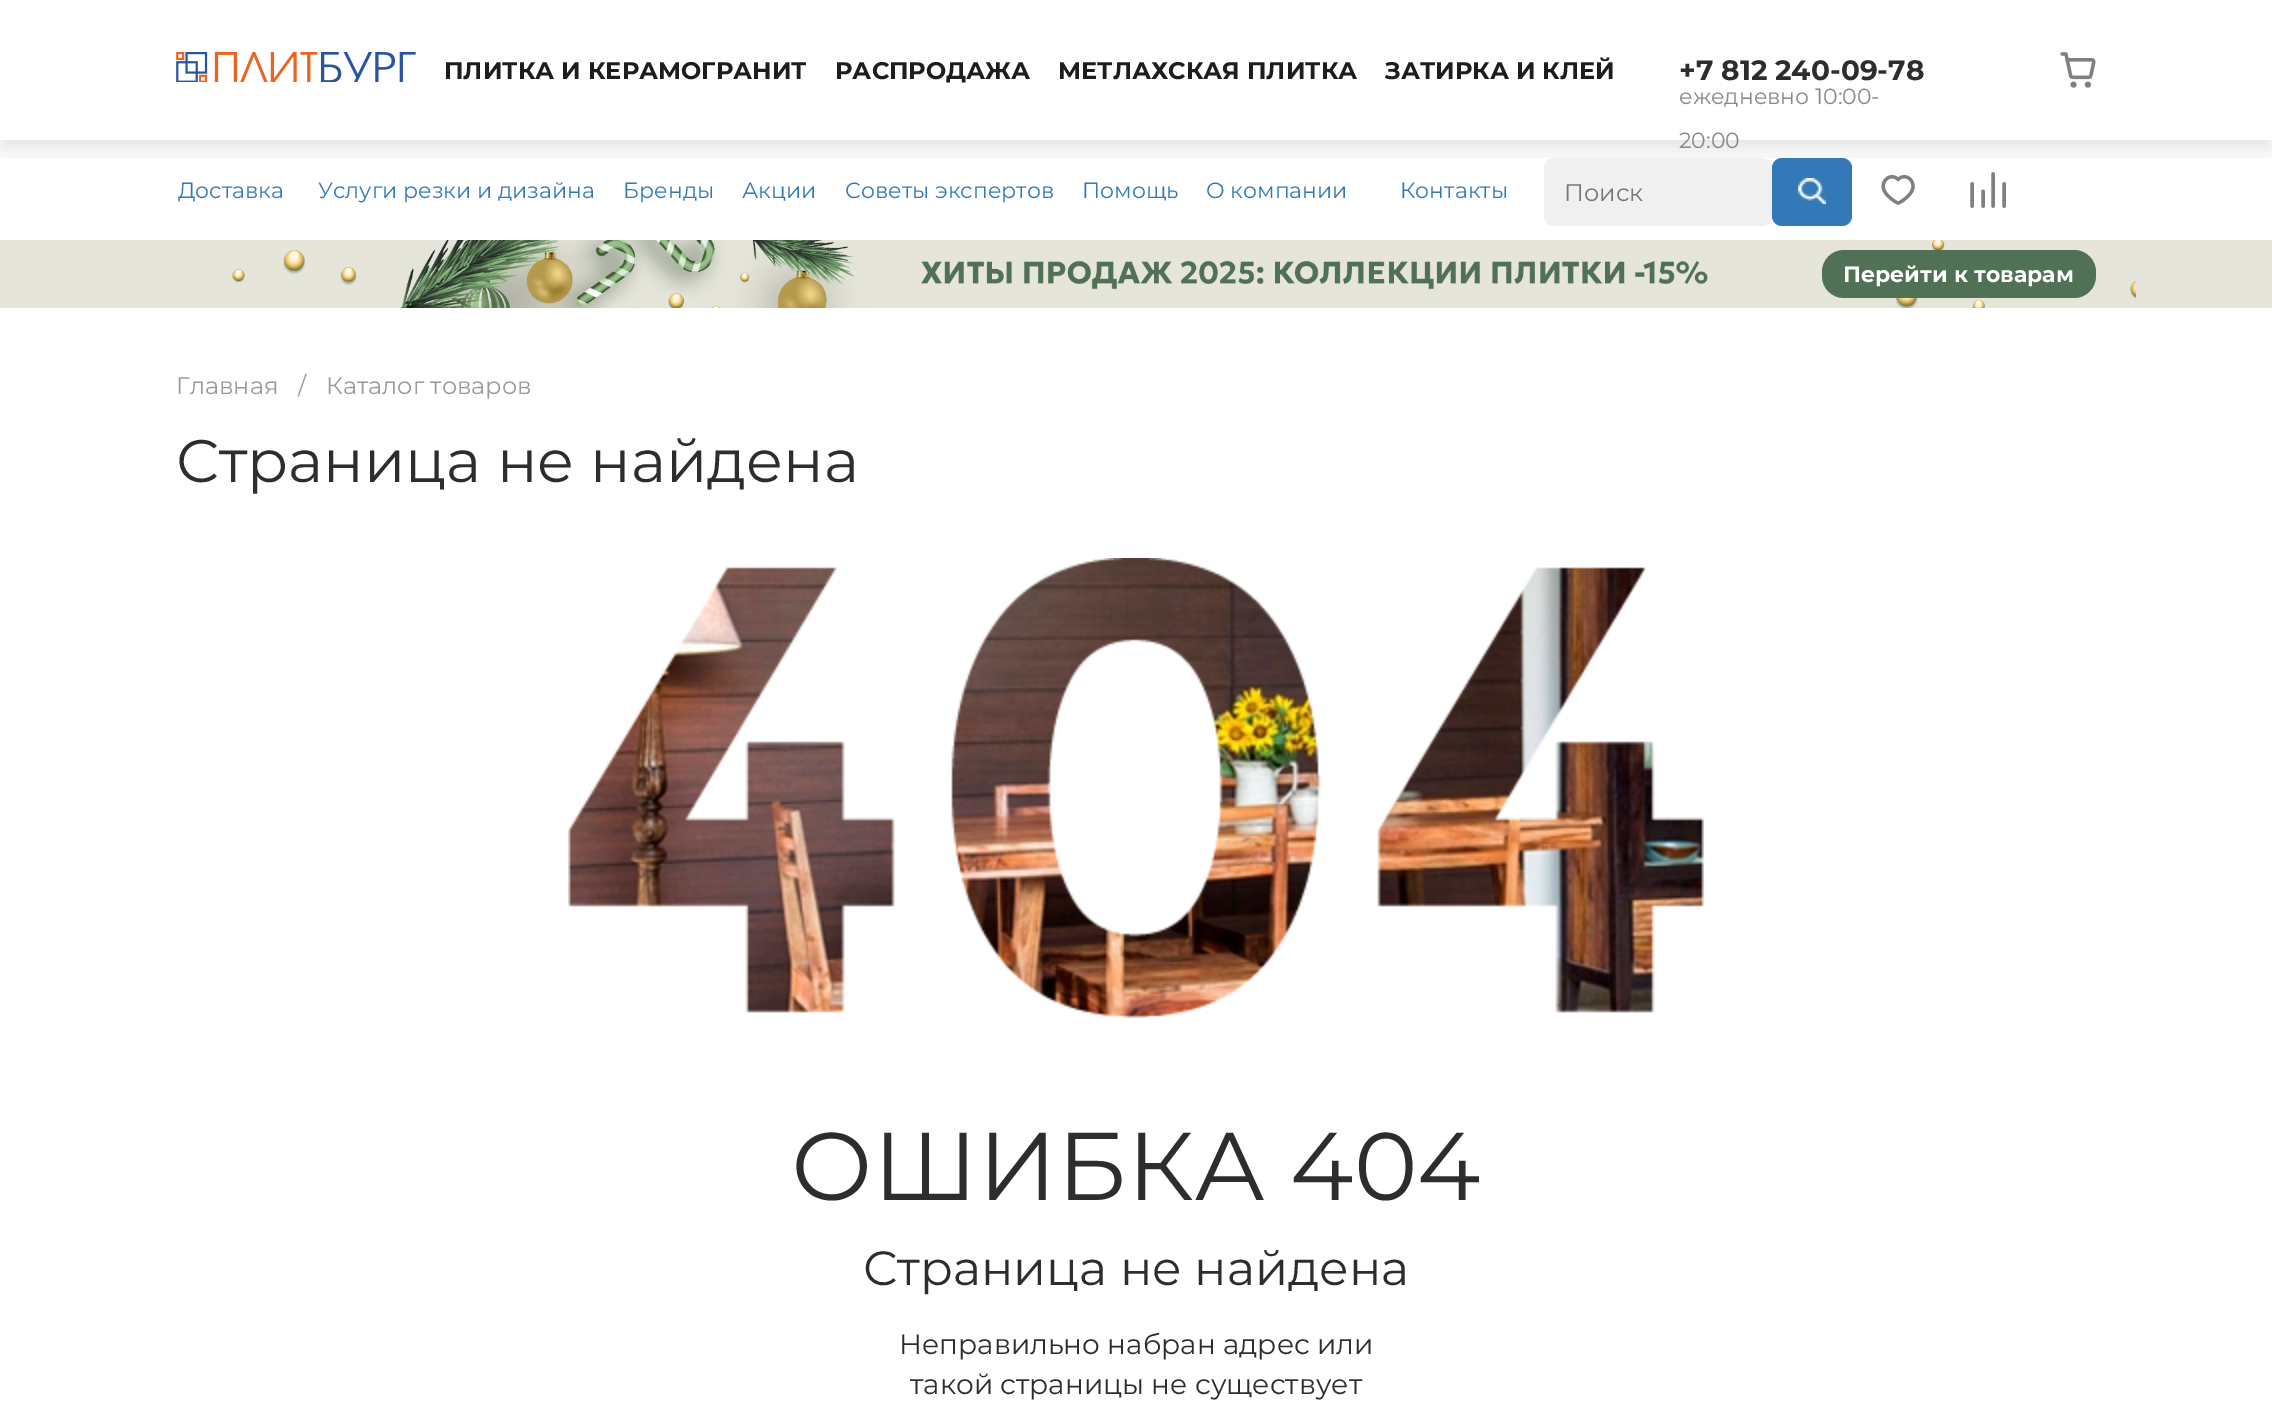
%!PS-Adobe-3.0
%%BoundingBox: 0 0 2272 1410
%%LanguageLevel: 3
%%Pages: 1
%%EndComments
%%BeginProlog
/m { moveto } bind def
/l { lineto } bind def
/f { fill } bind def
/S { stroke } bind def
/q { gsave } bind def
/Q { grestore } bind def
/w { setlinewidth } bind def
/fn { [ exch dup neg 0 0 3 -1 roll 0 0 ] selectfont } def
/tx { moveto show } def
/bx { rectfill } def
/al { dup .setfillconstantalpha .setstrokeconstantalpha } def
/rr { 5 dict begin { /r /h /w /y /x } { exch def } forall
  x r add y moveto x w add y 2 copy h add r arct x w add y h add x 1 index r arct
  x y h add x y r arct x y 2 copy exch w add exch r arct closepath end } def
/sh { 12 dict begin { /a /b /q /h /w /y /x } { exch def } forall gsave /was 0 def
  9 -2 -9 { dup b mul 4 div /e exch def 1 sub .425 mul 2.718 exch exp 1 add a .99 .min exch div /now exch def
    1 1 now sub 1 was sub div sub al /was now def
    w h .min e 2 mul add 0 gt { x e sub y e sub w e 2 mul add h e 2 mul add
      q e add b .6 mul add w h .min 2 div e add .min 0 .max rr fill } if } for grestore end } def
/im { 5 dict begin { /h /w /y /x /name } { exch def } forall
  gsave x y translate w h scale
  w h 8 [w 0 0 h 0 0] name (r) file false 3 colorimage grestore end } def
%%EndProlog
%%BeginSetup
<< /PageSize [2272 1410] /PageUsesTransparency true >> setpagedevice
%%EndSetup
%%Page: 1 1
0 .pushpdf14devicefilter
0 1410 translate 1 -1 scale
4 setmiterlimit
1 setgray
0 0 2272 1410 bx
0.941 setgray
1544 158 228 68 10 rr f
0.2 0.475 0.718 setrgbcolor
1772 158 80 68 10 rr f
(image2.raw) 1798 178 28 26 im
(image3.raw) 1881 174 34 31 im
0.502 setgray
3.6 w
1 setlinecap
1 setlinejoin
1983 191.5 m 1983 206 l 2004 184 m 2004 206 l 1993 174 m 1993 206 l 1972 184 m 1972 206 l S
q
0 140 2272 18 rectclip
0 setgray
0 10 2272 140 0 10 0.1 sh
Q
(image0.raw) 176 52 240 30 im
/Montserrat-Bold 24 fn
0.114 setgray
(ПЛИТКА И КЕРАМОГРАНИТ) 444 79 tx
(РАСПРОДАЖА) 835 79 tx
(МЕТЛАХСКАЯ ПЛИТКА) 1058 79 tx
(ЗАТИРКА И КЛЕЙ) 1385 79 tx
/Montserrat-Bold 28 fn
0.176 setgray
(+7 812 240-09-78) 1679 80 tx
/Montserrat-Regular 22 fn
0.533 setgray
(ежедневно 10:00-) 1679 104 tx
(20:00) 1679 148 tx
(image1.raw) 2060 52 36 36 im
0.2 0.475 0.718 setrgbcolor
(Доставка) 178 198 tx
(Услуги резки и дизайна) 318 198 tx
(Бренды) 623 198 tx
(Акции) 742 198 tx
(Советы экспертов) 845 198 tx
(Помощь) 1082 198 tx
(О компании) 1206 198 tx
(Контакты) 1400 198 tx
/Montserrat-Regular 24 fn
0.459 setgray
(Поиск) 1564 201 tx
0.902 0.898 0.855 setrgbcolor
0 240 2272 68 bx
(image4.raw) 232 240 1904 68 im
0.314 0.443 0.337 setrgbcolor
1822 250 274 48 22 rr f
/Montserrat-Bold 22 fn
1 setgray
(Перейти к товарам) 1843 282 tx
/Montserrat-Regular 24 fn
0.604 setgray
(Главная) 176 394 tx
(/) 298 394 tx
(Каталог товаров) 326 394 tx
/Montserrat-Regular 60 fn
0.176 setgray
(Страница не найдена) 176 482 tx
(image5.raw) 568 558 1136 460 im
/Montserrat-Regular 96 fn
(ОШИБКА 404) 791 1200 tx
/Montserrat-Regular 48 fn
(Страница не найдена) 863 1285 tx
/Montserrat-Regular 28 fn
(Неправильно набран адрес или) 899 1354 tx
(такой страницы не существует) 910 1394 tx
.poppdf14devicefilter showpage
%%EOF
